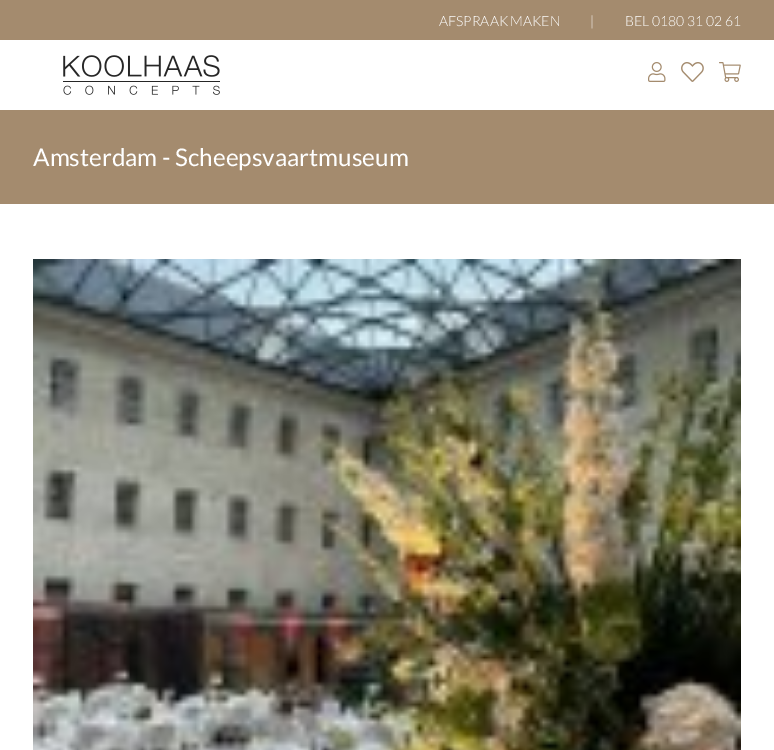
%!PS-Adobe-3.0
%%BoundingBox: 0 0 774 750
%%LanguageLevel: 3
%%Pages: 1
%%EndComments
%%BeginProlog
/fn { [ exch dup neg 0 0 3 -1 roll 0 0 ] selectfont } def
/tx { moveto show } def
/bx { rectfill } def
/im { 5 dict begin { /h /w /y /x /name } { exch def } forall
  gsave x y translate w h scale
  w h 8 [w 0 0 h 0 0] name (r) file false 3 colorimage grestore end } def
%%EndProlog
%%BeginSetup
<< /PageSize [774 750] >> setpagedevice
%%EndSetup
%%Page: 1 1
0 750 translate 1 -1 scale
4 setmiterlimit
1 setgray
0 0 774 750 bx
0.643 0.545 0.431 setrgbcolor
0 0 774 40 bx
/Lato-Light 14 fn
1 setgray
(AFSPRAAK MAKEN) 439 26 tx
(|) 590 26 tx
(BEL 0180 31 02 61) 625 26 tx
(image0.raw) 63 55 157 40 im
(image1.raw) 648 62 18 20 im
(image2.raw) 681 62 23 20 im
(image3.raw) 719 62 22 20 im
0.643 0.545 0.431 setrgbcolor
0 110 774 94 bx
/Lato-Regular 24.3 fn
1 setgray
(Amsterdam - Scheepsvaartmuseum) 33 166 tx
(image4.raw) 33 259 708 491 im
showpage
%%EOF
